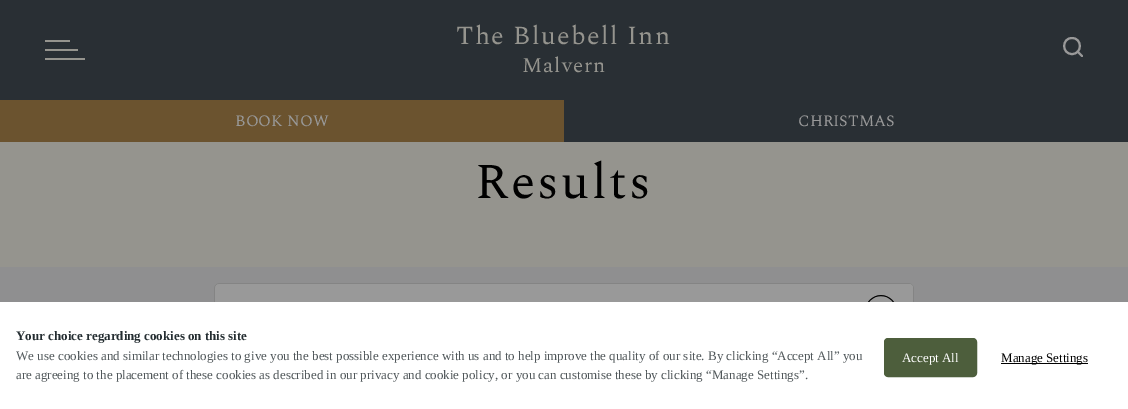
%!PS-Adobe-3.0
%%BoundingBox: 0 0 1128 409
%%LanguageLevel: 3
%%Pages: 1
%%EndComments
%%BeginProlog
/m { moveto } bind def
/l { lineto } bind def
/c { curveto } bind def
/h { closepath } bind def
/f { fill } bind def
/S { stroke } bind def
/q { gsave } bind def
/Q { grestore } bind def
/w { setlinewidth } bind def
/fn { [ exch dup neg 0 0 3 -1 roll 0 0 ] selectfont } def
/tx { moveto show } def
/bx { rectfill } def
/rr { 5 dict begin { /r /h /w /y /x } { exch def } forall
  x r add y moveto x w add y 2 copy h add r arct x w add y h add x 1 index r arct
  x y h add x y r arct x y 2 copy exch w add exch r arct closepath end } def
/im { 5 dict begin { /h /w /y /x /name } { exch def } forall
  gsave x y translate w h scale
  w h 8 [w 0 0 h 0 0] name (r) file false 3 colorimage grestore end } def
%%EndProlog
%%BeginSetup
<< /PageSize [1128 409] >> setpagedevice
%%EndSetup
%%Page: 1 1
0 409 translate 1 -1 scale
4 setmiterlimit
0.584 0.58 0.557 setrgbcolor
0 0 1128 409 bx
0.161 0.184 0.204 setrgbcolor
0 0 1128 100 bx
0.584 0.58 0.557 setrgbcolor
45 49 33 2 bx
45 40 25 2 bx
45 58 40 2 bx
/Spectral-Regular 26 fn
456 44 m 1.4 0 (The Bluebell Inn) ashow
/Spectral-Regular 21 fn
522 72 m 1 0 (Malvern) ashow
0.6 setgray
2 w
1 setlinecap
1 setlinejoin
1072 54 m 1082.5 54 1082.5 38 1072 38 c 1061.5 38 1061.5 54 1072 54 c h 1082 56 m 1077.5 51.5 l S
0.42 0.325 0.184 setrgbcolor
0 100 564 42 bx
/Spectral-Regular 16 fn
0.6 setgray
(BOOK NOW) 235 126 tx
0.161 0.184 0.204 setrgbcolor
564 100 564 42 bx
0.6 setgray
(CHRISTMAS) 798 126 tx
/Spectral-Regular 50 fn
0 setgray
475 198 m 2.5 0 (Results) ashow
(image0.raw) 0 267 1128 35 im
1 setgray
0 302 1128 107 bx
/LiberationSerif-Bold 13 fn
0.141 0.176 0.192 setrgbcolor
(Your choice regarding cookies on this site) 16 340 tx
/LiberationSerif-Regular 13 fn
0.314 0.341 0.353 setrgbcolor
(We use cookies and similar technologies to give you the best possible experience with us and to help improve the quality of our site. By clicking “Accept All” you) 16 360 tx
(are agreeing to the placement of these cookies as described in our privacy and cookie policy, or you can customise these by clicking “Manage Settings”.) 16 379 tx
0.302 0.369 0.235 setrgbcolor
885 339 91 37 3 rr q f Q
0 setlinecap
0 setlinejoin
S
1 setgray
(Accept All) 902 362 tx
0 setgray
1001 363 87 1 bx
(Manage Settings) 1001 362 tx
showpage
%%EOF
